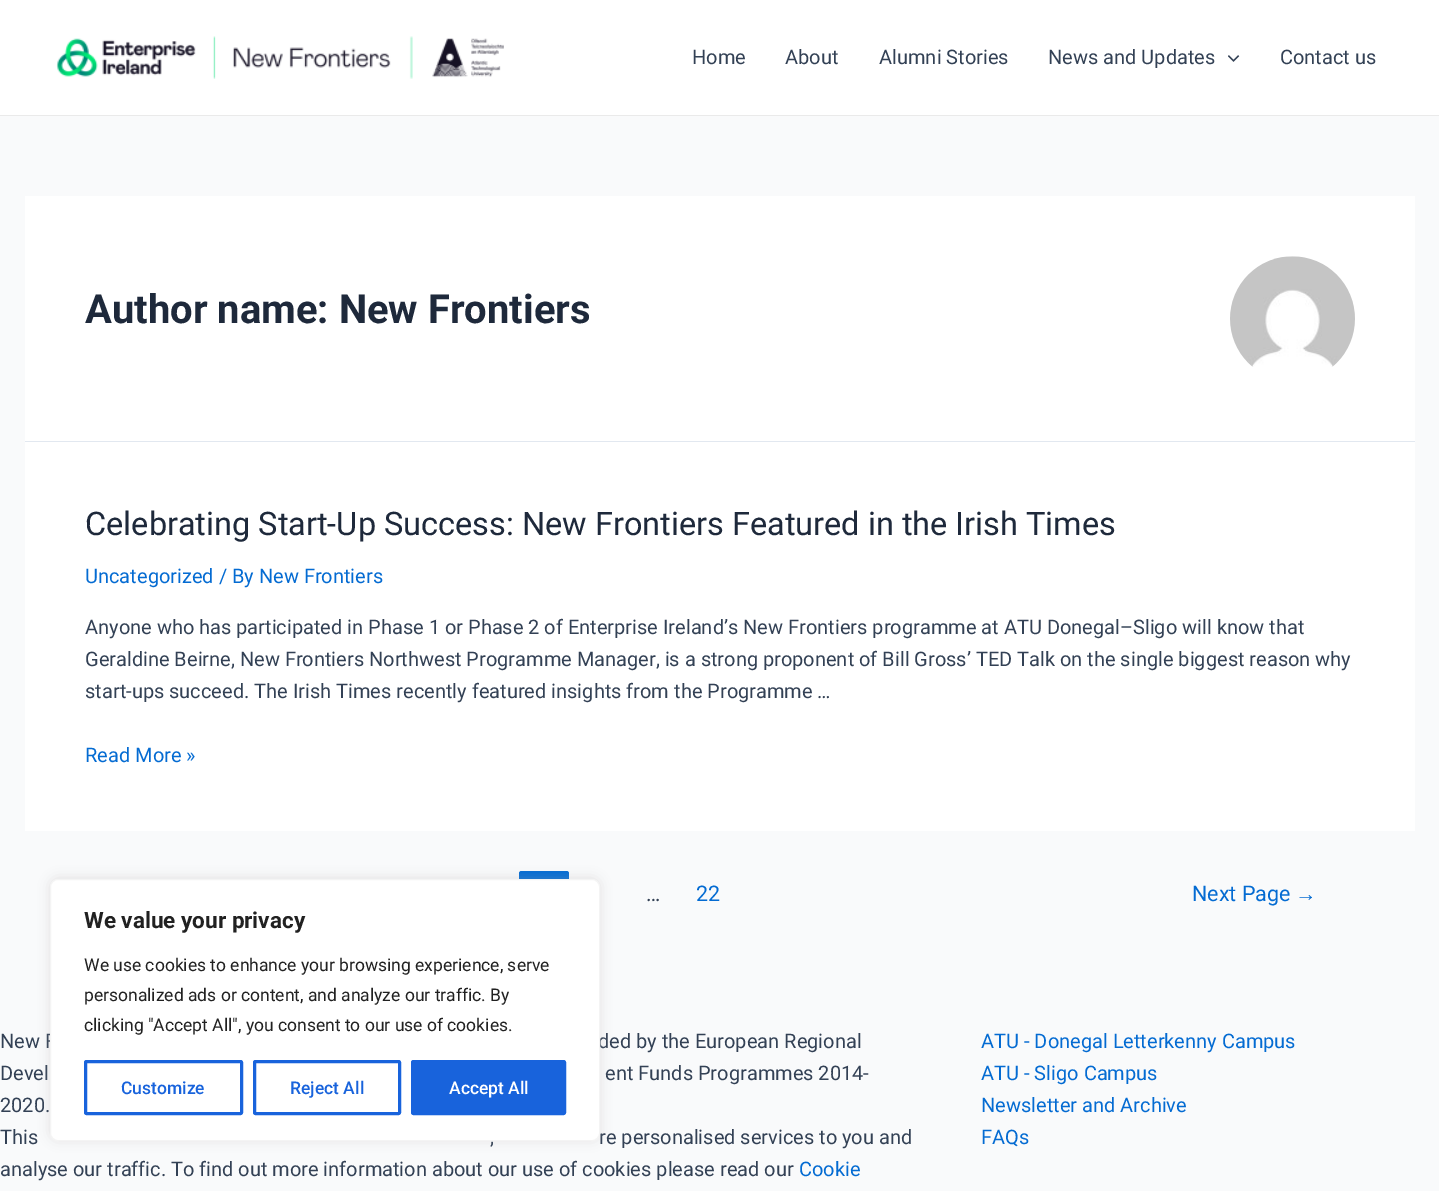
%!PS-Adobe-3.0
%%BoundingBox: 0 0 1439 1191
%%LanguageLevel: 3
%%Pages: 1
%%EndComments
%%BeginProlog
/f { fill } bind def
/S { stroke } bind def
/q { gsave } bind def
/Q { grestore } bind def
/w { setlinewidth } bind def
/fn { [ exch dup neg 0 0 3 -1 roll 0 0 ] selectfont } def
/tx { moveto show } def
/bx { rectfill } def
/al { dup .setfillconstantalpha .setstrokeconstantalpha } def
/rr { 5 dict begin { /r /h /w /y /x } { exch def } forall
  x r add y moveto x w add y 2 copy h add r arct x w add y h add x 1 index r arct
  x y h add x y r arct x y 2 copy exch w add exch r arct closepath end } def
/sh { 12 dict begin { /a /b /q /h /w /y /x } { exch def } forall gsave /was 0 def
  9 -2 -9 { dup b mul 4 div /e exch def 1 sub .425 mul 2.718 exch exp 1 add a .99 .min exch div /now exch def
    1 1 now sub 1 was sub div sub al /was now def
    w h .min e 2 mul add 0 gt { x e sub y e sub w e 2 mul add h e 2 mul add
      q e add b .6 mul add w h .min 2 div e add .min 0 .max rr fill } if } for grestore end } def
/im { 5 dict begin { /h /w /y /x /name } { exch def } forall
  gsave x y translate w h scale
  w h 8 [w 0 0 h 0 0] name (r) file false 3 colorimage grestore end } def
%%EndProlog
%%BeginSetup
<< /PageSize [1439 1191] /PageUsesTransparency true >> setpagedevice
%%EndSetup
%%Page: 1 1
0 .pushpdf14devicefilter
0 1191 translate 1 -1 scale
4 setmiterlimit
0.976 0.98 0.984 setrgbcolor
0 0 1439 1191 bx
1 setgray
0 0 1439 115 bx
0.918 setgray
0 115 1439 1 bx
(image0.raw) 56 36 448 43 im
/Roboto-Regular 20 fn
0.2 0.255 0.333 setrgbcolor
(Home) 692 64 tx
(About) 785 64 tx
(Alumni Stories) 879 64 tx
(News and Updates) 1048 64 tx
(image1.raw) 1228 55 12 7 im
(Contact us) 1280 64 tx
1 setgray
25 196 1390 635 bx
0.886 0.91 0.941 setrgbcolor
25 441 1390 1 bx
/Roboto-Bold 40 fn
0.118 0.161 0.231 setrgbcolor
(Author name: New Frontiers) 85 323 tx
(image2.raw) 1230 256 125 111 im
/Roboto-Regular 32.5 fn
(Celebrating Start-Up Success: New Frontiers Featured in the Irish Times) 85 535 tx
/Roboto-Regular 20 fn
0.016 0.42 0.824 setrgbcolor
(Uncategorized / By New Frontiers) 85 583 tx
0.2 0.255 0.333 setrgbcolor
(Anyone who has participated in Phase 1 or Phase 2 of Enterprise Ireland’s New Frontiers programme at ATU Donegal–Sligo will know that) 85 634 tx
(Geraldine Beirne, New Frontiers Northwest Programme Manager, is a strong proponent of Bill Gross’ TED Talk on the single biggest reason why) 85 666 tx
(start-ups succeed. The Irish Times recently featured insights from the Programme …) 85 698 tx
0.016 0.42 0.824 setrgbcolor
(Read More ») 85 762 tx
519 871 50 50 2.5 rr f
/Roboto-Regular 21.5 fn
0.2 0.255 0.333 setrgbcolor
(…) 646 901 tx
0.016 0.42 0.824 setrgbcolor
(22) 696 901 tx
(Next Page) 1192 901 tx
/LiberationSans-Regular 21.5 fn
(→) 1295 901 tx
/Roboto-Regular 20 fn
0.2 0.255 0.333 setrgbcolor
(New F) 0 1048 tx
(ded by the European Regional) 598 1048 tx
(Devel) 0 1080 tx
(ent Funds Programmes 2014-) 605 1080 tx
(2020.) 0 1112 tx
(This) 0 1144 tx
(,) 490 1144 tx
(re personalised services to you and) 599 1144 tx
(analyse our traffic. To find out more information about our use of cookies please read our) 0 1176 tx
0.016 0.42 0.824 setrgbcolor
(Cookie) 799 1176 tx
(ATU - Donegal Letterkenny Campus) 981 1048 tx
(ATU - Sligo Campus) 981 1080 tx
(Newsletter and Archive) 981 1112 tx
(FAQs) 981 1144 tx
0.675 0.671 0.671 setrgbcolor
50 878 550 262 8 6 0.3 sh
1 setgray
50.5 879.5 549 261 7.5 rr q f Q
0.957 setgray
S
/Roboto-Bold 22.5 fn
0.129 setgray
(We value your privacy) 84 928 tx
/Roboto-Regular 17.5 fn
(We use cookies to enhance your browsing experience, serve) 84 971 tx
(personalized ads or content, and analyze our traffic. By) 84 1001 tx
(clicking "Accept All", you consent to our use of cookies.) 84 1031 tx
0.094 0.388 0.863 setrgbcolor
3 w
85.5 1061.5 156 52 1 rr S
/Roboto-Medium 17.5 fn
(Customize) 121 1094 tx
254.5 1061.5 145 52 1 rr S
(Reject All) 290 1094 tx
412.5 1061.5 152 52 1 rr q f Q
S
1 setgray
(Accept All) 449 1094 tx
.poppdf14devicefilter showpage
%%EOF
